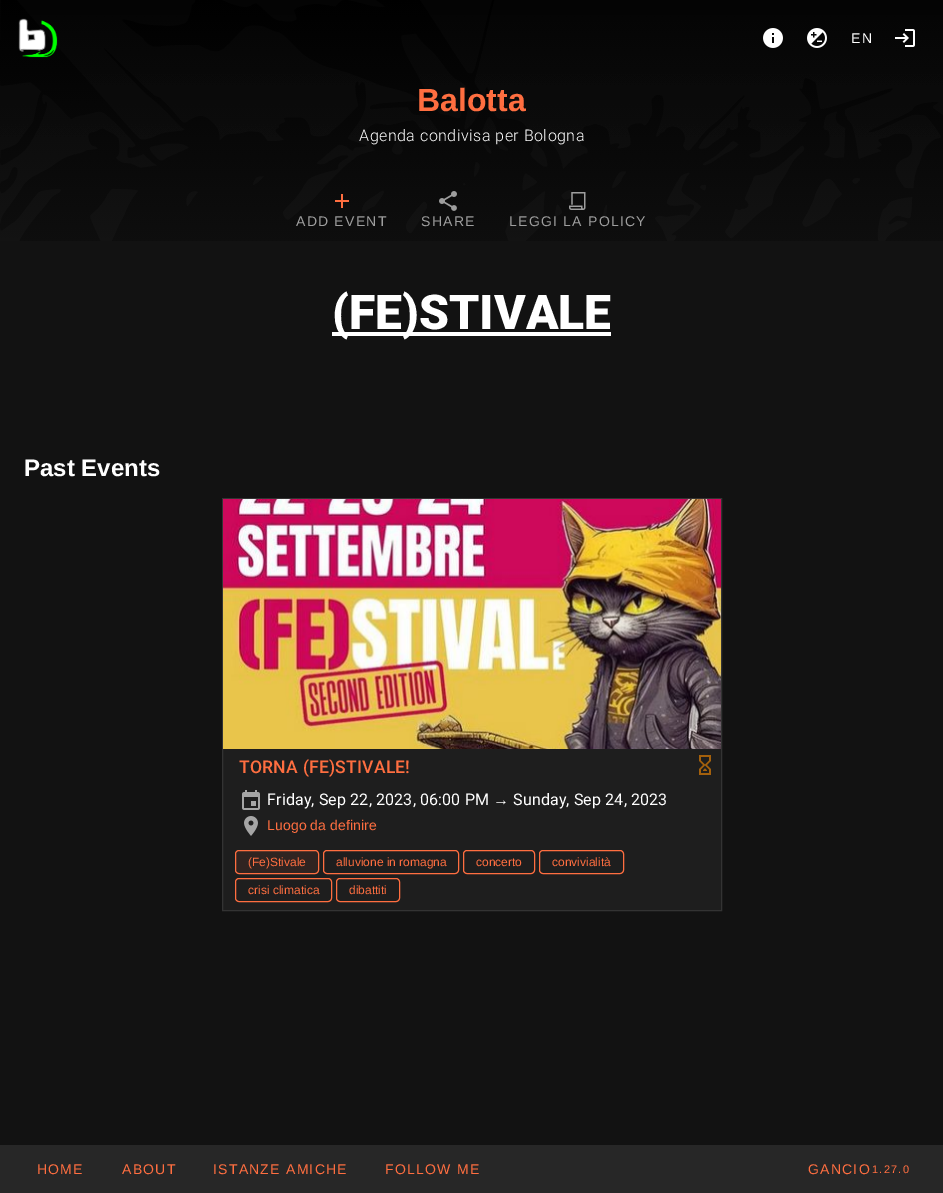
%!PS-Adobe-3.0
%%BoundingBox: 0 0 943 1193
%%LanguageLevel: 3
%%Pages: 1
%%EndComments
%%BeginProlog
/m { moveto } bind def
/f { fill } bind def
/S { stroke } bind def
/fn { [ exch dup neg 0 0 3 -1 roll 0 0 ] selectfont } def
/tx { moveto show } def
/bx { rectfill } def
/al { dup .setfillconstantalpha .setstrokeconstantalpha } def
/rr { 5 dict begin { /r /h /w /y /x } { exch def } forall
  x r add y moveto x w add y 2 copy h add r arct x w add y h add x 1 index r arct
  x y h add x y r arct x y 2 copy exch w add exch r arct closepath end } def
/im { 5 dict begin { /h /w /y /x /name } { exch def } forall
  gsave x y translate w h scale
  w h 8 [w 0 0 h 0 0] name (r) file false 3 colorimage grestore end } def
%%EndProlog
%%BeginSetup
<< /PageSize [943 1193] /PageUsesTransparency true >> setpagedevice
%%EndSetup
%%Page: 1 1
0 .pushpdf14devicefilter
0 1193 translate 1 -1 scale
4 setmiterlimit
0.071 setgray
0 0 943 1193 bx
(image0.raw) 0 0 943 241 im
(image1.raw) 18 18 40 40 im
(image2.raw) 763 28 20 20 im
(image3.raw) 807 28 20 20 im
/LiberationSans-Regular 14 fn
1 setgray
851 43 m 1.25 0 (EN) ashow
(image4.raw) 895 29 20 18 im
/LiberationSans-Bold 32 fn
1 0.431 0.251 setrgbcolor
(Balotta) 417 111 tx
/Roboto-Light 16 fn
1 setgray
359 141 m 0.5 0 (Agenda condivisa per Bologna) ashow
(image5.raw) 335 194 14 14 im
/LiberationSans-Regular 14 fn
0.62 setgray
296 226 m 1.25 0 (ADD EVENT) ashow
(image6.raw) 439 191 18 20 im
421 226 m 1.25 0 (SHARE) ashow
(image7.raw) 569 192 17 18 im
509 226 m 1.25 0 (LEGGI LA POLICY) ashow
1 setgray
332 332 279 4 bx
/Roboto-Black 48 fn
(\(FE\)STIVALE) 332 329 tx
/LiberationSans-Bold 24 fn
(Past Events) 24 476 tx
0.118 setgray
223 749 498 161 bx
0.2 setgray
222.5 498.5 499 412 rectstroke
(image8.raw) 223 499 498 250 im
/Roboto-Medium 17.5 fn
1 0.431 0.251 setrgbcolor
239 773 m 0.25 0 (TORNA \(FE\)STIVALE!) ashow
(image9.raw) 699 755 12 20 im
(image10.raw) 242 790 18 20 im
/Roboto-Regular 16 fn
1 setgray
267 805 m 0.15 0 (Friday, Sep 22, 2023, 06:00 PM) ashow
/LiberationSans-Regular 16 fn
493 805 m 0.15 0 (→) ashow
/Roboto-Regular 16 fn
513 805 m 0.15 0 (Sunday, Sep 24, 2023) ashow
(image11.raw) 244 816 14 20 im
/LiberationSans-Regular 14 fn
1 0.431 0.251 setrgbcolor
267 830 m 0.1 0 (Luogo da definire) ashow
235.5 850.5 83 23 3.5 rr S
0.08 al
236 851 82 22 4 rr f
/LiberationSans-Regular 12 fn
1 al
(\(Fe\)Stivale) 248 866 tx
323.5 850.5 135 23 3.5 rr S
(alluvione in romagna) 336 866 tx
463.5 850.5 71 23 3.5 rr S
(concerto) 476 866 tx
539.5 850.5 84 23 3.5 rr S
(convivialità) 552 866 tx
235.5 878.5 96 23 3.5 rr S
(crisi climatica) 248 894 tx
336.5 878.5 63 23 3.5 rr S
(dibattiti) 349 894 tx
0.153 setgray
0 1145 943 48 bx
/LiberationSans-Regular 14 fn
1 0.431 0.251 setrgbcolor
37 1174 m 1.25 0 (HOME) ashow
122 1174 m 1.25 0 (ABOUT) ashow
213 1174 m 1.25 0 (ISTANZE AMICHE) ashow
385 1174 m 1.25 0 (FOLLOW ME) ashow
808 1174 m 1.25 0 (GANCIO) ashow
/LiberationSans-Regular 11 fn
872 1173 m 1.25 0 (1.27.0) ashow
.poppdf14devicefilter showpage
%%EOF
